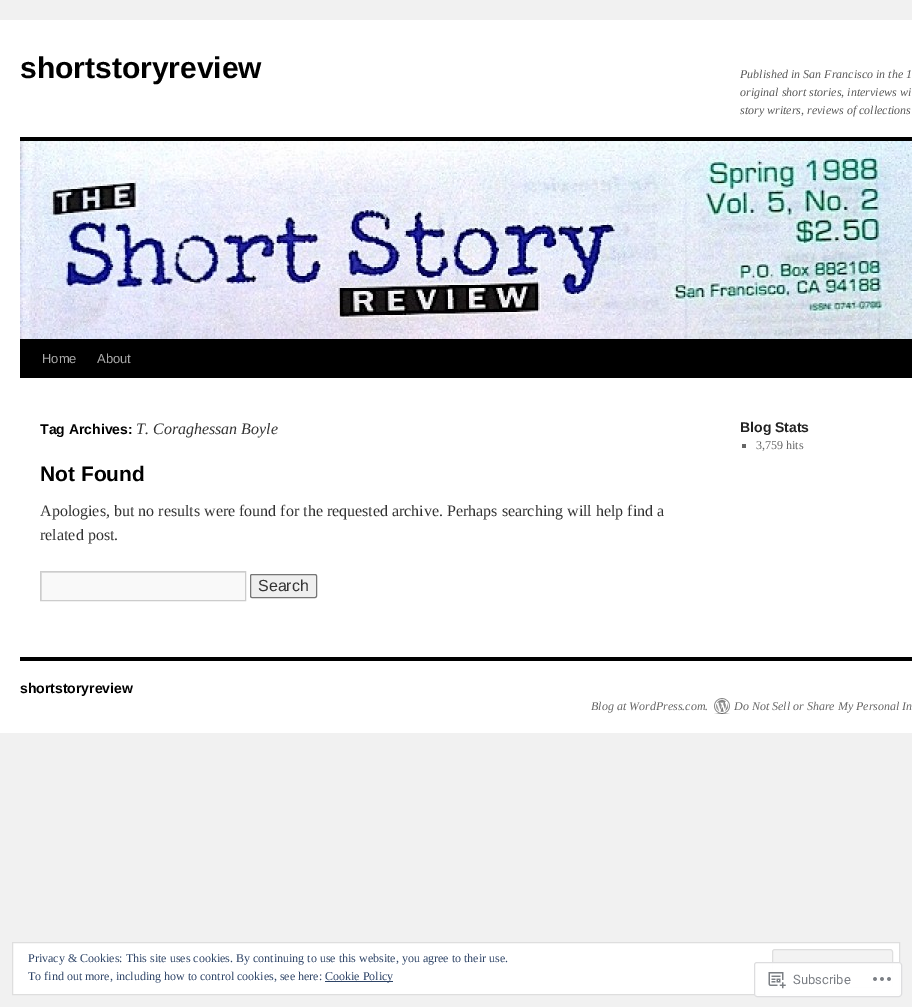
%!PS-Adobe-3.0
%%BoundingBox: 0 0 912 1007
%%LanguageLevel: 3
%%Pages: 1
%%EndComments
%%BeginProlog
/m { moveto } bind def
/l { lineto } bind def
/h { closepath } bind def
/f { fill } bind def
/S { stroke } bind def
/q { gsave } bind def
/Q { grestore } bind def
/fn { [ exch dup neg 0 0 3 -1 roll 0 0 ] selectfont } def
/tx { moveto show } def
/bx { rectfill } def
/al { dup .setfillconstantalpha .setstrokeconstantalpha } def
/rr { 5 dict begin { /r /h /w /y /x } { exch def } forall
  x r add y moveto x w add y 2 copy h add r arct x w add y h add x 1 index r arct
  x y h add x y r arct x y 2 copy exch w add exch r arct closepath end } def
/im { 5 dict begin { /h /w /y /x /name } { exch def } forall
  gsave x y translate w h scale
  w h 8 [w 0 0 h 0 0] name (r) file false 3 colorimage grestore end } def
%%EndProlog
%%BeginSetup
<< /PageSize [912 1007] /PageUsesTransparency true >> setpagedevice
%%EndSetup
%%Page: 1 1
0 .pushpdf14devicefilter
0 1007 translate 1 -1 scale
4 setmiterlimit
0.945 setgray
0 0 912 1007 bx
1 setgray
0 20 912 713 bx
/LiberationSans-Bold 30 fn
0 setgray
(shortstoryreview) 20 78 tx
/LiberationSerif-Italic 12 fn
0.349 setgray
(Published in San Francisco in the 1) 740 78 tx
(original short stories, interviews wi) 740 96 tx
(story writers, reviews of collections) 740 114 tx
0 setgray
20 137 892 4 bx
20 339 892 39 bx
(image0.raw) 20 141 892 198 im
/LiberationSans-Regular 13 fn
0.667 setgray
(Home) 42 363 tx
(About) 97 363 tx
/LiberationSans-Bold 14 fn
0 setgray
(Tag Archives:) 40 434 tx
/LiberationSerif-Italic 16 fn
0.2 setgray
(T. Coraghessan Boyle) 136 434 tx
/LiberationSans-Bold 21 fn
0 setgray
(Not Found) 40 481 tx
/LiberationSerif-Regular 16 fn
0.2 setgray
(Apologies, but no results were found for the requested archive. Perhaps searching will help find a) 40 516 tx
(related post.) 40 540 tx
0.976 setgray
42 573 203 27 bx
q
41 572 204 28 rectclip
0.878 setgray
-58 473 m 344 473 l 344 699 l -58 699 l h 42 573 m 246 573 l 246 601 l 42 601 l h eofill
Q
0.8 setgray
40.5 571.5 205 29 rectstroke
0.937 setgray
250.5 574.5 66 23 1.5 rr q f Q
0.463 setgray
S
/LiberationSans-Regular 16 fn
0.2 setgray
(Search) 258 591 tx
/LiberationSans-Bold 14 fn
0.133 setgray
(Blog Stats) 740 432 tx
0.4 setgray
742 444 4 4 bx
/LiberationSerif-Regular 12 fn
(3,759 hits) 756 449 tx
0 setgray
20 657 892 4 bx
/LiberationSans-Bold 14 fn
(shortstoryreview) 20 693 tx
/LiberationSerif-Italic 12 fn
0.4 setgray
(Blog at WordPress.com.) 591 710 tx
(image1.raw) 714 698 16 16 im
(Do Not Sell or Share My Personal In) 734 710 tx
1 setgray
12.5 942.5 m 899.5 942.5 l 899.5 994.5 l 12.5 994.5 l h q f Q
0.871 setgray
S
/LiberationSerif-Regular 12 fn
0.18 0.267 0.404 setrgbcolor
(Privacy & Cookies: This site uses cookies. By continuing to use this website, you agree to their use.) 28 962 tx
0.953 setgray
772.5 949.5 120 38 2.5 rr q f Q
0.871 setgray
S
0.18 0.267 0.404 setrgbcolor
(To find out more, including how to control cookies, see here:) 28 980 tx
325 981 68 1 bx
(Cookie Policy) 325 980 tx
0.98 al
1 setgray
754 962 148 35 3 rr f
0.863 0.863 0.871 setrgbcolor
754.5 962.5 147 34 2.5 rr S
1 al
(image2.raw) 768 972 18 17 im
/Roboto-Regular 13 fn
0.478 0.494 0.518 setrgbcolor
(Subscribe) 793 984 tx
(image3.raw) 873 977 18 4 im
.poppdf14devicefilter showpage
%%EOF
